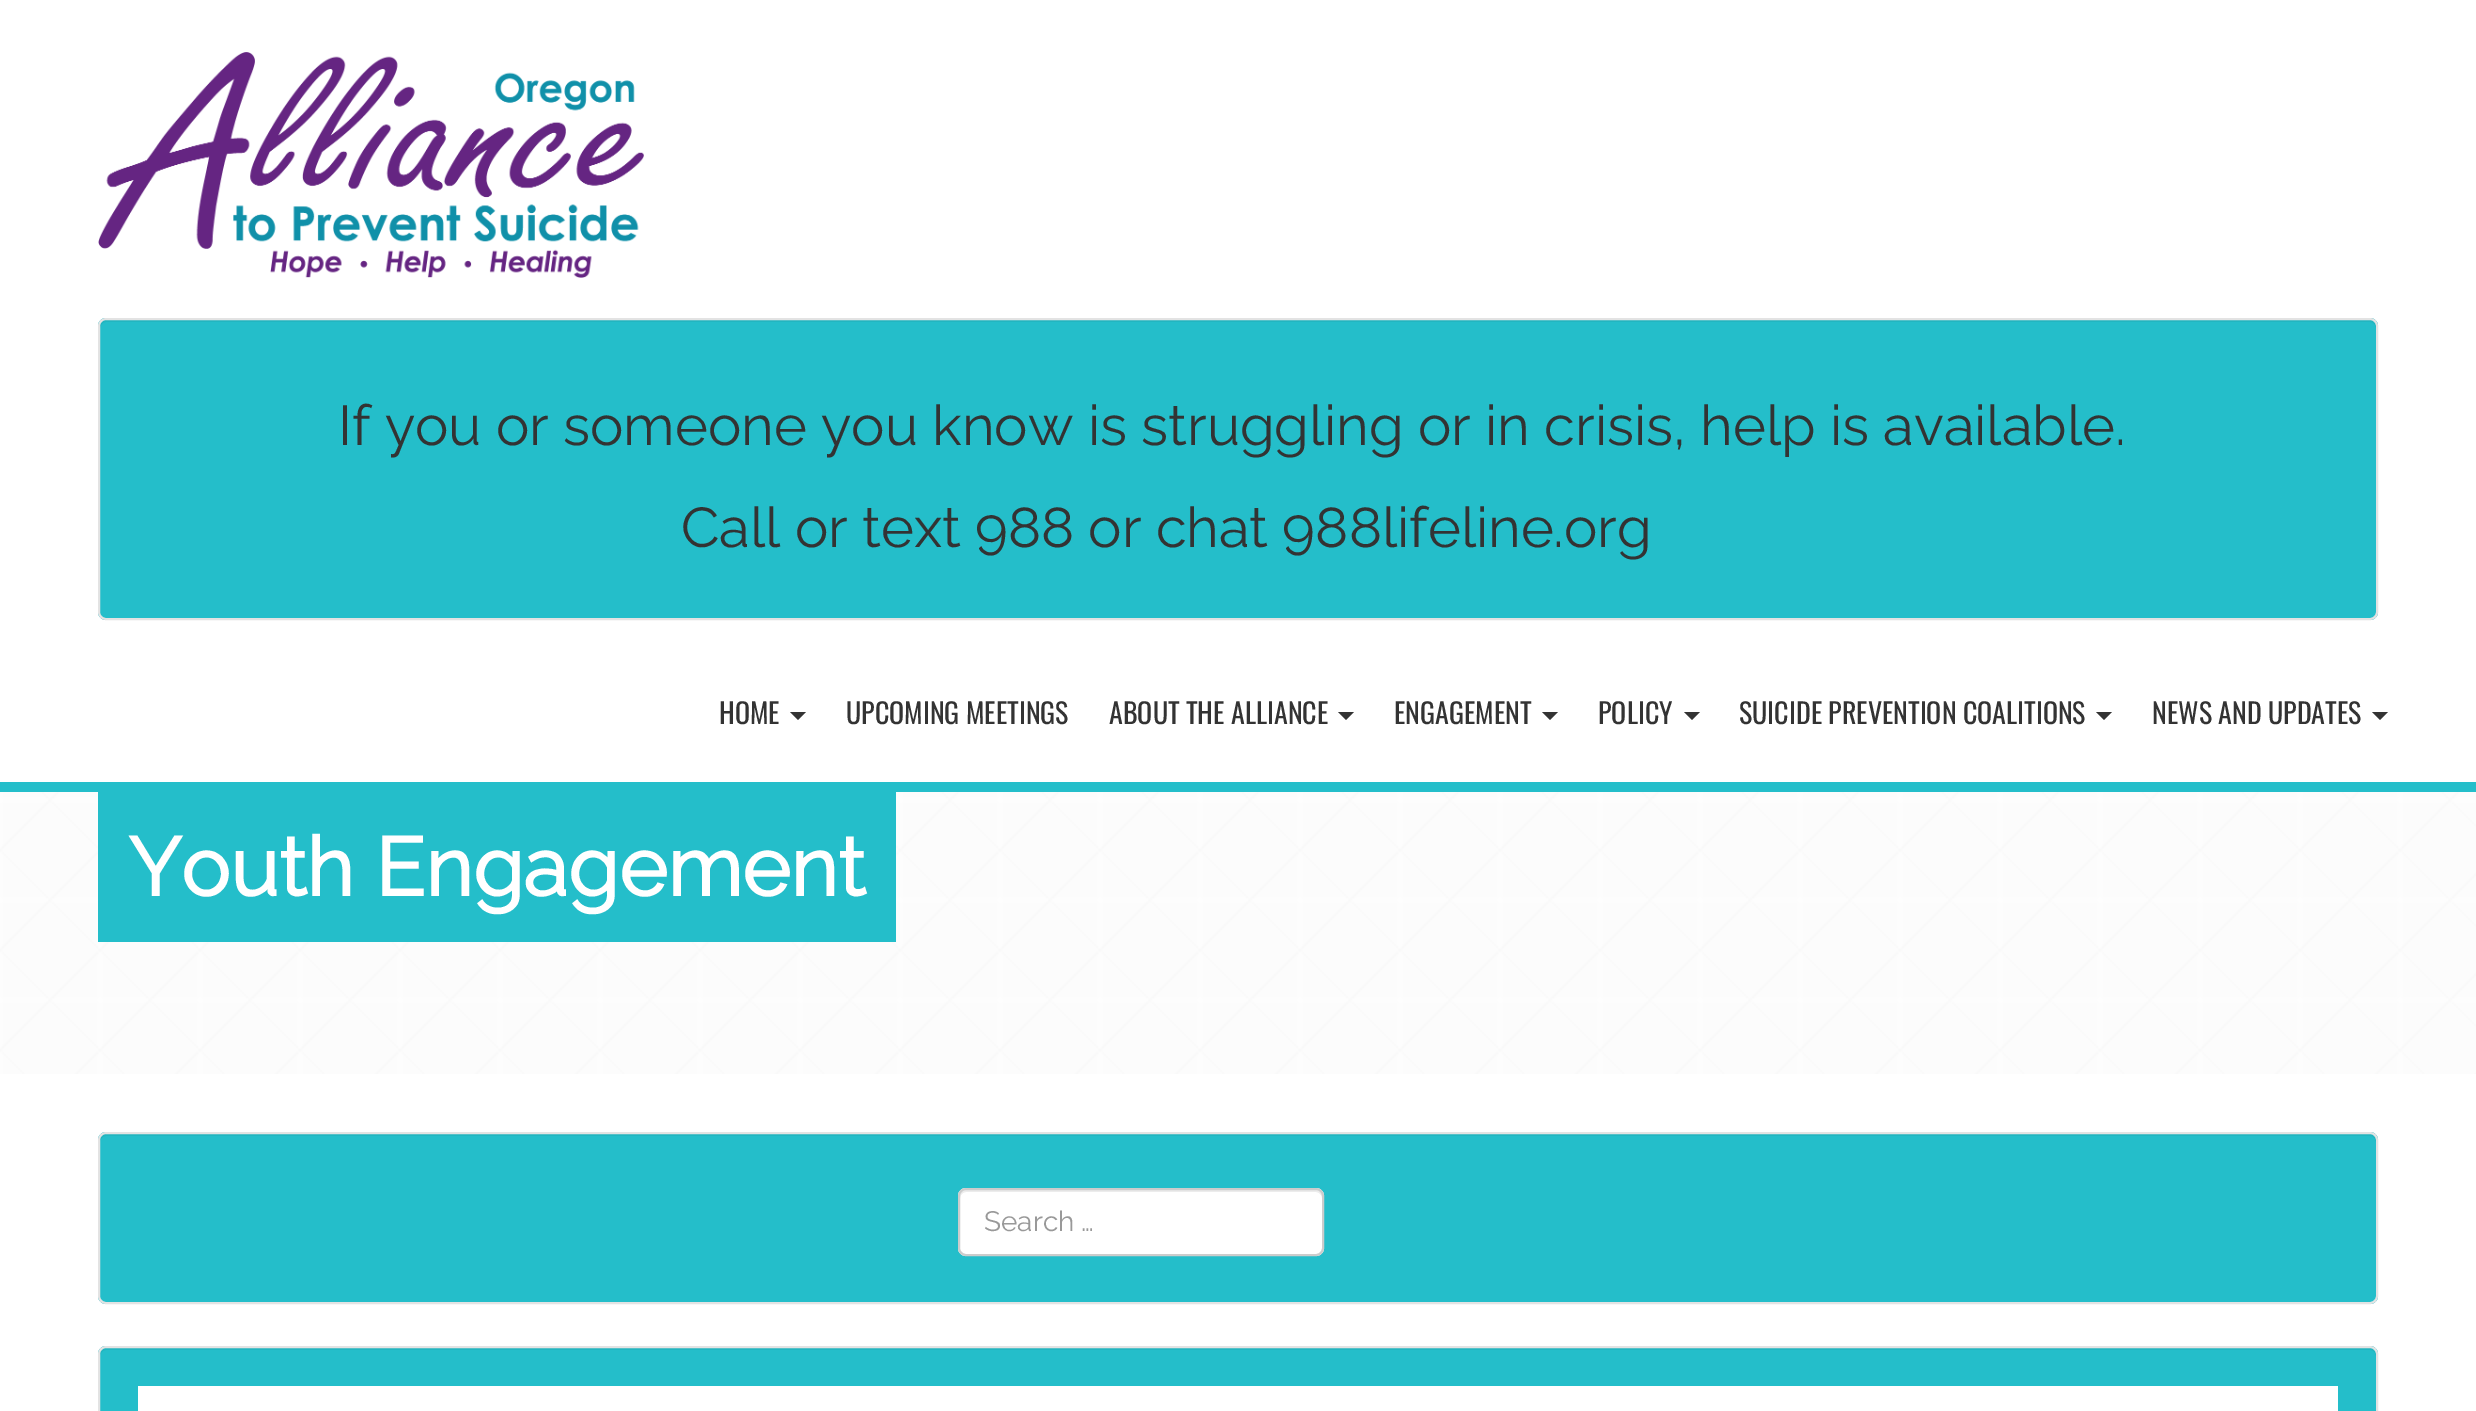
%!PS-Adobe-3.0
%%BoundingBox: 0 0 2476 1411
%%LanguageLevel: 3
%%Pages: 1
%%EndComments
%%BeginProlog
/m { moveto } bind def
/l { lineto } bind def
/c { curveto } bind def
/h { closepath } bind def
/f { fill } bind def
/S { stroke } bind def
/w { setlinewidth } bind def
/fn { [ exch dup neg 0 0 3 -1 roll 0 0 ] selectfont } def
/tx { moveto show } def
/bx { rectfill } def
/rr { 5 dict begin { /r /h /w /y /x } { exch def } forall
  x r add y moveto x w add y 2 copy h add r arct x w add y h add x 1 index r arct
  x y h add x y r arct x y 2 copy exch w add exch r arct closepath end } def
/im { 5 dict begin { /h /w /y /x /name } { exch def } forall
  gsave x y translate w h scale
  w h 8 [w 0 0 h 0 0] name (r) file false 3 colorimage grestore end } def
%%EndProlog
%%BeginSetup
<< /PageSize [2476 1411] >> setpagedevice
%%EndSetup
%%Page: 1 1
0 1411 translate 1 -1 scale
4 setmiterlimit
1 setgray
0 0 2476 1411 bx
(image0.raw) 0 792 2476 282 im
0.141 0.745 0.792 setrgbcolor
0 782 2476 10 bx
(image1.raw) 98 52 546 226 im
98 318 2280 302 8 rr f
0.133 0.71 0.753 setrgbcolor
106 322 m 2370 322 l 2373 322 2376 325 2376 328 c 2376 326 l 2376 323 2373 320 2370 320 c 106 320 l 103 320 100 323 100 326 c 100 328 l 100 325 103 322 106 322 c h f
0.89 setgray
2 w
99 319 2278 300 7 rr S
/Raleway-Thin 56 fn
0.2 setgray
(If you or someone you know is struggling or in crisis, help is available.) 338 445 tx
(Call or text 988 or chat 988lifeline.org) 681 547 tx
/Oswald-Regular 28 fn
(HOME) 719 724 tx
790 712 m 806 712 l 798 720 l h f
(UPCOMING MEETINGS) 846 724 tx
(ABOUT THE ALLIANCE) 1109 724 tx
1338 712 m 1354 712 l 1346 720 l h f
(ENGAGEMENT) 1394 724 tx
1542 712 m 1558 712 l 1550 720 l h f
(POLICY) 1598 724 tx
1684 712 m 1700 712 l 1692 720 l h f
(SUICIDE PREVENTION COALITIONS) 1739 724 tx
2096 712 m 2112 712 l 2104 720 l h f
(NEWS AND UPDATES) 2152 724 tx
2372 712 m 2388 712 l 2380 720 l h f
0.141 0.745 0.792 setrgbcolor
98 792 798 150 bx
/Raleway-Bold 82 fn
1 setgray
(Youth Engagement) 128 896 tx
0.141 0.745 0.792 setrgbcolor
98 1132 2280 172 8 rr f
0.133 0.71 0.753 setrgbcolor
106 1136 m 2370 1136 l 2373 1136 2376 1139 2376 1142 c 2376 1140 l 2376 1137 2373 1134 2370 1134 c 106 1134 l 103 1134 100 1137 100 1140 c 100 1142 l 100 1139 103 1136 106 1136 c h f
0.89 setgray
99 1133 2278 170 7 rr S
1 setgray
958 1188 366 68 8 rr f
0.925 setgray
966 1192 m 1316 1192 l 1319 1192 1322 1195 1322 1198 c 1322 1196 l 1322 1193 1319 1190 1316 1190 c 966 1190 l 963 1190 960 1193 960 1196 c 960 1198 l 960 1195 963 1192 966 1192 c h f
0.8 setgray
959 1189 364 66 7 rr S
/Raleway-Thin 28 fn
0.6 setgray
(Search …) 984 1231 tx
0.141 0.745 0.792 setrgbcolor
98 1346 2280 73 8 rr f
0.133 0.71 0.753 setrgbcolor
106 1350 m 2370 1350 l 2373 1350 2376 1353 2376 1356 c 2376 1354 l 2376 1351 2373 1348 2370 1348 c 106 1348 l 103 1348 100 1351 100 1354 c 100 1356 l 100 1353 103 1350 106 1350 c h f
0.89 setgray
99 1347 2278 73 7 rr S
1 setgray
138 1386 2200 25 bx
showpage
%%EOF
